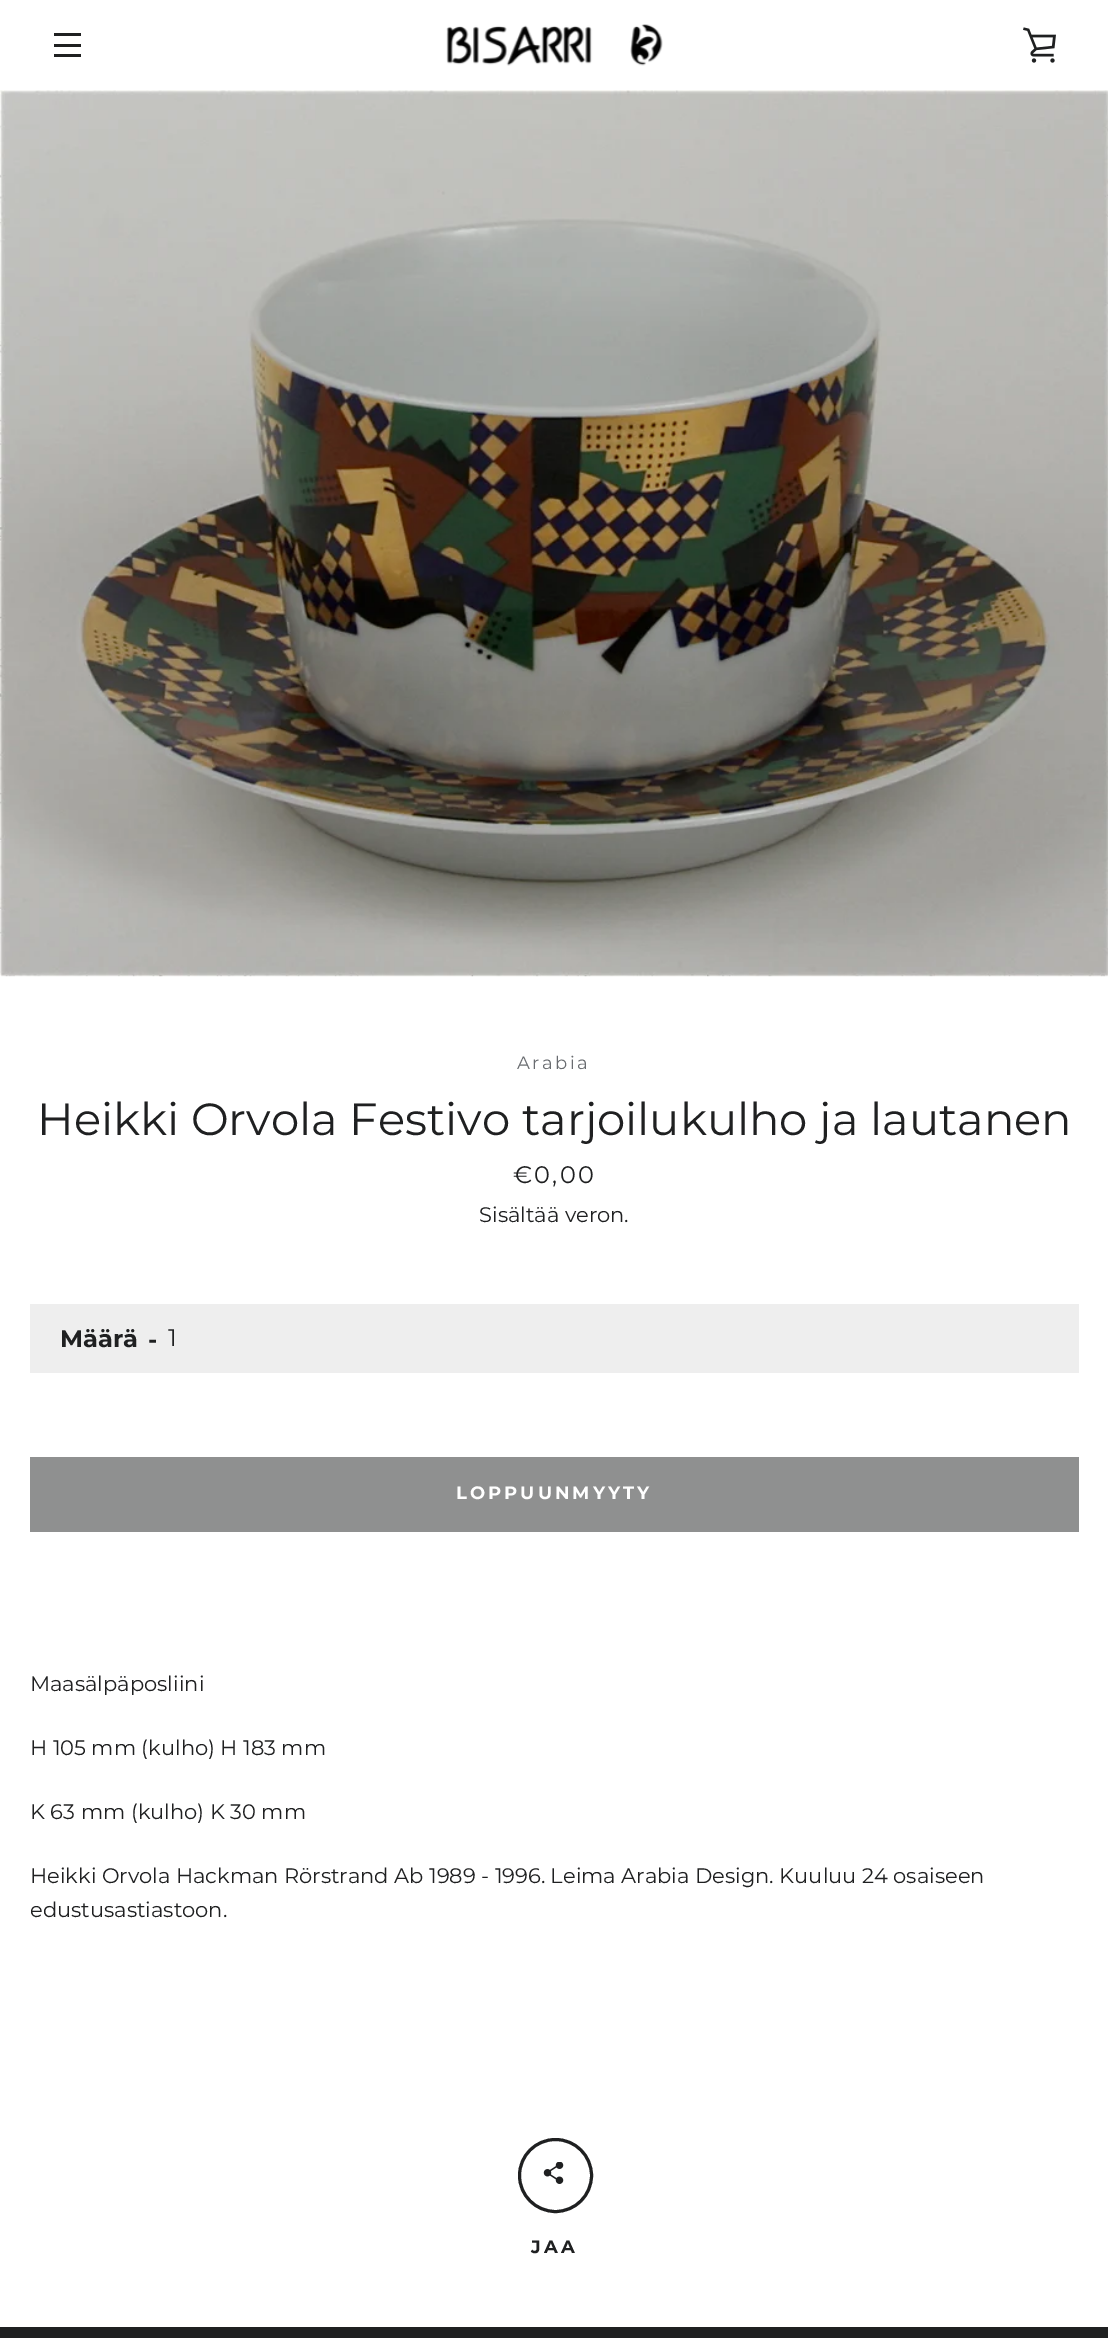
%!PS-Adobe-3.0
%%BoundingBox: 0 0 1108 2338
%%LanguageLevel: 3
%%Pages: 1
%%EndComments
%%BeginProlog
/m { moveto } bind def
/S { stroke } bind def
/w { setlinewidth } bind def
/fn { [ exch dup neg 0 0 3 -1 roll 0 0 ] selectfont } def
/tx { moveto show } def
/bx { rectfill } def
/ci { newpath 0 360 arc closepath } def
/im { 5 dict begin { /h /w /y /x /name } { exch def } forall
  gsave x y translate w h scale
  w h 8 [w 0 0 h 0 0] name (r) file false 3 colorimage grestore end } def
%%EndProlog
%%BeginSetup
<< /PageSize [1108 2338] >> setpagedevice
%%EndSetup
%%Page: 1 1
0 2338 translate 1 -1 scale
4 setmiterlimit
1 setgray
0 0 1108 2338 bx
0.122 0.125 0.129 setrgbcolor
54 33 27 3 bx
54 44 27 3 bx
54 54 27 3 bx
(image0.raw) 446 24 217 42 im
(image1.raw) 1023 27 33 36 im
(image2.raw) 0 90 1108 887 im
/Montserrat-Regular 18 fn
0.412 0.424 0.439 setrgbcolor
517 1069 m 2.5 0 (Arabia) ashow
/Montserrat-Regular 45 fn
0.122 0.125 0.129 setrgbcolor
(Heikki Orvola Festivo tarjoilukulho ja lautanen) 37 1135 tx
/Montserrat-Regular 24 fn
513 1183 m 2.25 0 (€0,00) ashow
/Montserrat-Regular 21 fn
(Sisältää veron.) 479 1222 tx
0.933 setgray
30 1304 1049 69 bx
/Montserrat-Bold 24 fn
0.122 0.125 0.129 setrgbcolor
(Määrä) 60 1347 tx
(-) 148 1348 tx
/Montserrat-Regular 24 fn
(1) 168 1346 tx
0.561 0.565 0.565 setrgbcolor
30 1457 1049 75 bx
/Montserrat-Bold 18 fn
1 setgray
456 1499 m 3 0 (LOPPUUNMYYTY) ashow
/Montserrat-Regular 21 fn
0.122 0.125 0.129 setrgbcolor
(Maasälpäposliini) 30 1691 tx
(H 105 mm \(kulho\) H 183 mm) 30 1755 tx
(K 63 mm \(kulho\) K 30 mm) 30 1819 tx
(Heikki Orvola Hackman Rörstrand Ab 1989 - 1996. Leima Arabia Design. Kuuluu 24 osaiseen) 30 1883 tx
(edustusastiastoon.) 30 1917 tx
3 w
555.5 2175.5 36 ci S
(image3.raw) 543 2162 21 22 im
/Montserrat-Bold 18 fn
531 2253 m 3 0 (JAA) ashow
0 2327 1108 11 bx
showpage
%%EOF
